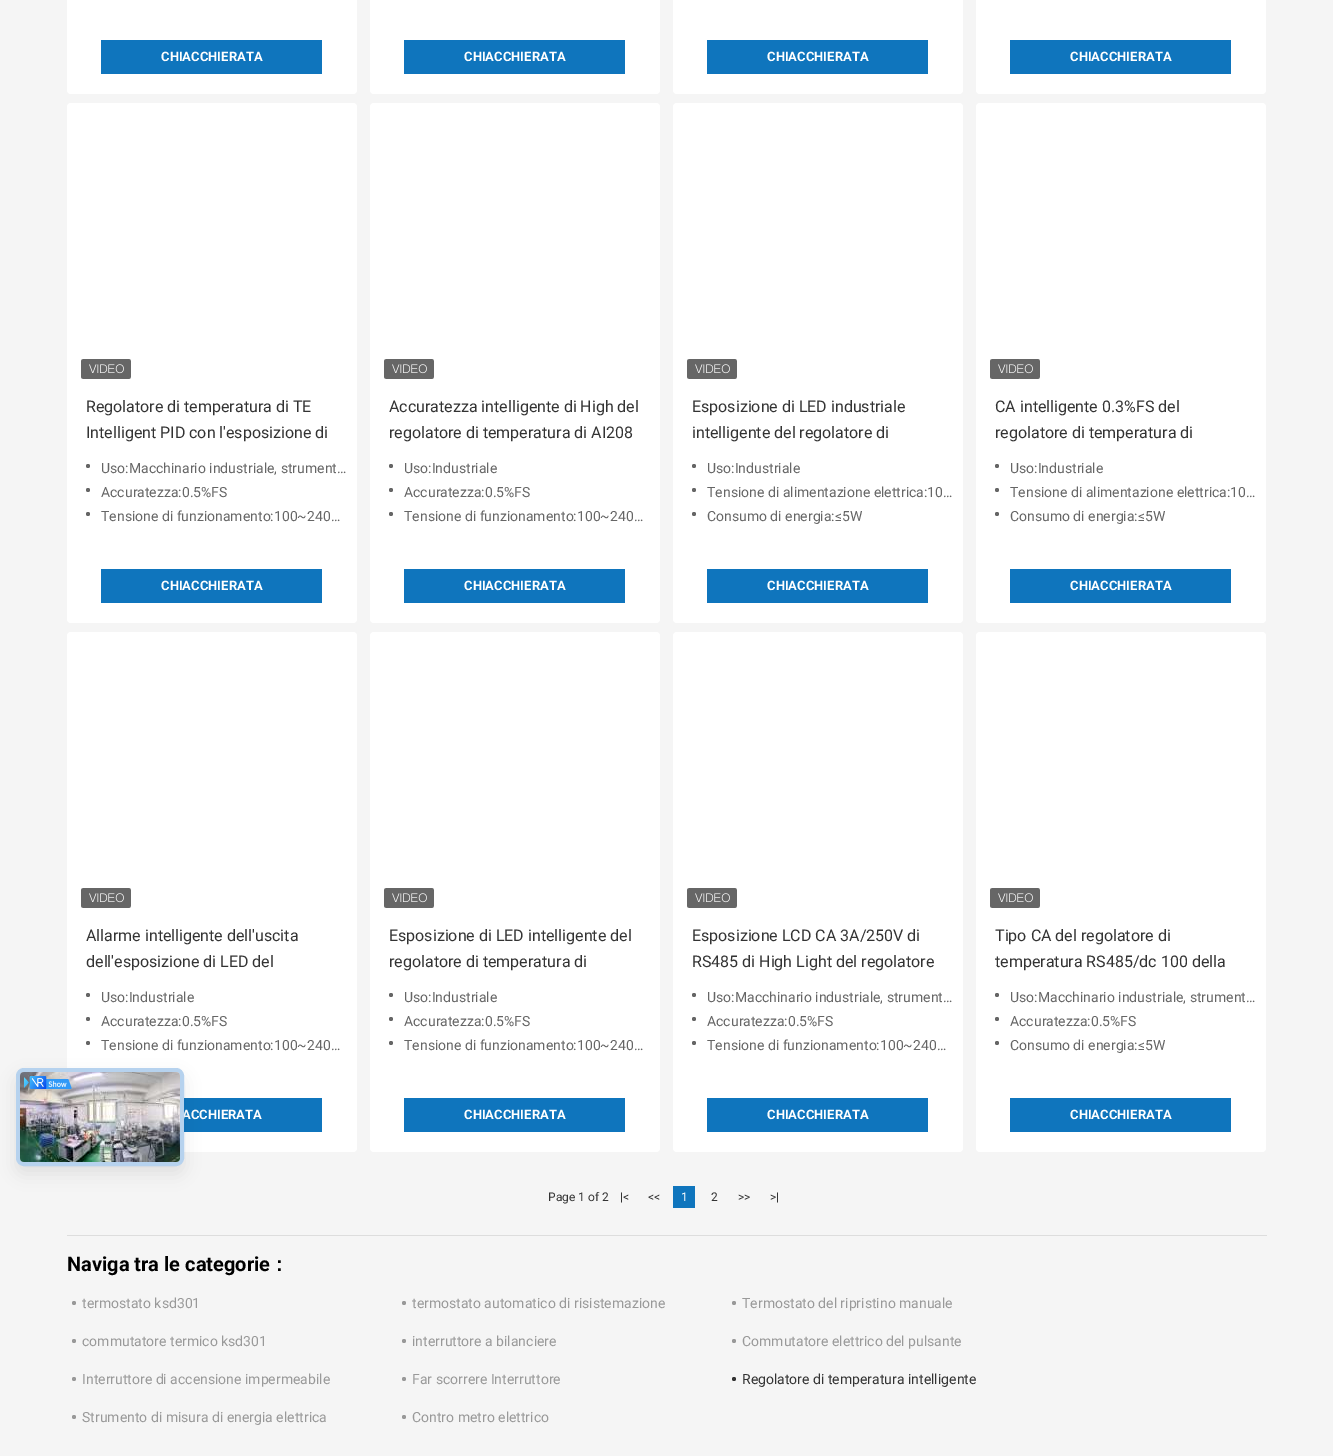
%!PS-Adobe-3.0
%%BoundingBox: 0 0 1333 1456
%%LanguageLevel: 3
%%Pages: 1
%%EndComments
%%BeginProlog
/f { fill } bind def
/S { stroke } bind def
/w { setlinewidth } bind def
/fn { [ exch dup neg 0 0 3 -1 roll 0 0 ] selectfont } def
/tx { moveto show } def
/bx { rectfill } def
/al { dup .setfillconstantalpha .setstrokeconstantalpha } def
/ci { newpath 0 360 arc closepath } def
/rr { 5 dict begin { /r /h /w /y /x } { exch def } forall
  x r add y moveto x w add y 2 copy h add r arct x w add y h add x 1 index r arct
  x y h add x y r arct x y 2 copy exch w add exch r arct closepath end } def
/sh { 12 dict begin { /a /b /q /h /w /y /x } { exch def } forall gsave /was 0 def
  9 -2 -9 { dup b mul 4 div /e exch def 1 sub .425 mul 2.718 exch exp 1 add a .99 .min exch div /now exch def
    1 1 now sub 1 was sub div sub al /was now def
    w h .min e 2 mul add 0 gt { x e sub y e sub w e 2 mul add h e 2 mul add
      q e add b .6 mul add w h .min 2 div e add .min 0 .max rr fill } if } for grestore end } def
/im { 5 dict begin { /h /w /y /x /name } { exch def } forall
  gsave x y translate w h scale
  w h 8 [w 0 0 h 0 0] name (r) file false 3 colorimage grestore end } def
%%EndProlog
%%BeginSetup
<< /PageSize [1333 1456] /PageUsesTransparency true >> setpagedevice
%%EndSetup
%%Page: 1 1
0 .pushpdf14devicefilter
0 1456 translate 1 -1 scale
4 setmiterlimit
0.961 setgray
0 0 1333 1456 bx
1 setgray
67 -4 290 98 4 rr f
0.059 0.459 0.741 setrgbcolor
101 40 221 34 bx
/Roboto-Bold 13 fn
1 setgray
(CHIACCHIERATA) 161 61 tx
370 -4 290 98 4 rr f
0.059 0.459 0.741 setrgbcolor
404 40 221 34 bx
1 setgray
(CHIACCHIERATA) 464 61 tx
673 -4 290 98 4 rr f
0.059 0.459 0.741 setrgbcolor
707 40 221 34 bx
1 setgray
(CHIACCHIERATA) 767 61 tx
976 -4 290 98 4 rr f
0.059 0.459 0.741 setrgbcolor
1010 40 221 34 bx
1 setgray
(CHIACCHIERATA) 1070 61 tx
67 103 290 520 4 rr f
(image0.raw) 81 359 50 20 im
/Roboto-Regular 16 fn
0.2 setgray
(Regolatore di temperatura di TE) 86 412 tx
(Intelligent PID con l'esposizione di) 86 438 tx
0.4 setgray
88 466 2 ci f
/Roboto-Regular 14 fn
(Uso:Macchinario industriale, strument…) 101 473 tx
88 490 2 ci f
(Accuratezza:0.5%FS) 101 497 tx
88 514 2 ci f
(Tensione di funzionamento:100~240…) 101 521 tx
0.059 0.459 0.741 setrgbcolor
101 569 221 34 bx
/Roboto-Bold 13 fn
1 setgray
(CHIACCHIERATA) 161 590 tx
370 103 290 520 4 rr f
(image0.raw) 384 359 50 20 im
/Roboto-Regular 16 fn
0.2 setgray
(Accuratezza intelligente di High del) 389 412 tx
(regolatore di temperatura di AI208) 389 438 tx
0.4 setgray
391 466 2 ci f
/Roboto-Regular 14 fn
(Uso:Industriale) 404 473 tx
391 490 2 ci f
(Accuratezza:0.5%FS) 404 497 tx
391 514 2 ci f
(Tensione di funzionamento:100~240…) 404 521 tx
0.059 0.459 0.741 setrgbcolor
404 569 221 34 bx
/Roboto-Bold 13 fn
1 setgray
(CHIACCHIERATA) 464 590 tx
673 103 290 520 4 rr f
(image0.raw) 687 359 50 20 im
/Roboto-Regular 16 fn
0.2 setgray
(Esposizione di LED industriale) 692 412 tx
(intelligente del regolatore di) 692 438 tx
0.4 setgray
694 466 2 ci f
/Roboto-Regular 14 fn
(Uso:Industriale) 707 473 tx
694 490 2 ci f
(Tensione di alimentazione elettrica:10…) 707 497 tx
694 514 2 ci f
(Consumo di energia:≤5W) 707 521 tx
0.059 0.459 0.741 setrgbcolor
707 569 221 34 bx
/Roboto-Bold 13 fn
1 setgray
(CHIACCHIERATA) 767 590 tx
976 103 290 520 4 rr f
(image0.raw) 990 359 50 20 im
/Roboto-Regular 16 fn
0.2 setgray
(CA intelligente 0.3%FS del) 995 412 tx
(regolatore di temperatura di) 995 438 tx
0.4 setgray
997 466 2 ci f
/Roboto-Regular 14 fn
(Uso:Industriale) 1010 473 tx
997 490 2 ci f
(Tensione di alimentazione elettrica:10…) 1010 497 tx
997 514 2 ci f
(Consumo di energia:≤5W) 1010 521 tx
0.059 0.459 0.741 setrgbcolor
1010 569 221 34 bx
/Roboto-Bold 13 fn
1 setgray
(CHIACCHIERATA) 1070 590 tx
67 632 290 520 4 rr f
(image0.raw) 81 888 50 20 im
/Roboto-Regular 16 fn
0.2 setgray
(Allarme intelligente dell'uscita) 86 941 tx
(dell'esposizione di LED del) 86 967 tx
0.4 setgray
88 995 2 ci f
/Roboto-Regular 14 fn
(Uso:Industriale) 101 1002 tx
88 1019 2 ci f
(Accuratezza:0.5%FS) 101 1026 tx
88 1043 2 ci f
(Tensione di funzionamento:100~240…) 101 1050 tx
0.059 0.459 0.741 setrgbcolor
184 1098 138 34 bx
/Roboto-Bold 13 fn
1 setgray
(ACCHIERATA) 182 1119 tx
370 632 290 520 4 rr f
(image0.raw) 384 888 50 20 im
/Roboto-Regular 16 fn
0.2 setgray
(Esposizione di LED intelligente del) 389 941 tx
(regolatore di temperatura di) 389 967 tx
0.4 setgray
391 995 2 ci f
/Roboto-Regular 14 fn
(Uso:Industriale) 404 1002 tx
391 1019 2 ci f
(Accuratezza:0.5%FS) 404 1026 tx
391 1043 2 ci f
(Tensione di funzionamento:100~240…) 404 1050 tx
0.059 0.459 0.741 setrgbcolor
404 1098 221 34 bx
/Roboto-Bold 13 fn
1 setgray
(CHIACCHIERATA) 464 1119 tx
673 632 290 520 4 rr f
(image0.raw) 687 888 50 20 im
/Roboto-Regular 16 fn
0.2 setgray
(Esposizione LCD CA 3A/250V di) 692 941 tx
(RS485 di High Light del regolatore) 692 967 tx
0.4 setgray
694 995 2 ci f
/Roboto-Regular 14 fn
(Uso:Macchinario industriale, strument…) 707 1002 tx
694 1019 2 ci f
(Accuratezza:0.5%FS) 707 1026 tx
694 1043 2 ci f
(Tensione di funzionamento:100~240…) 707 1050 tx
0.059 0.459 0.741 setrgbcolor
707 1098 221 34 bx
/Roboto-Bold 13 fn
1 setgray
(CHIACCHIERATA) 767 1119 tx
976 632 290 520 4 rr f
(image0.raw) 990 888 50 20 im
/Roboto-Regular 16 fn
0.2 setgray
(Tipo CA del regolatore di) 995 941 tx
(temperatura RS485/dc 100 della) 995 967 tx
0.4 setgray
997 995 2 ci f
/Roboto-Regular 14 fn
(Uso:Macchinario industriale, strument…) 1010 1002 tx
997 1019 2 ci f
(Accuratezza:0.5%FS) 1010 1026 tx
997 1043 2 ci f
(Consumo di energia:≤5W) 1010 1050 tx
0.059 0.459 0.741 setrgbcolor
1010 1098 221 34 bx
/Roboto-Bold 13 fn
1 setgray
(CHIACCHIERATA) 1070 1119 tx
/Roboto-Regular 12 fn
0.2 setgray
(Page 1 of 2) 548 1201 tx
(|<) 620 1201 tx
(<<) 648 1201 tx
0.059 0.459 0.741 setrgbcolor
673 1186 22 22 bx
1 setgray
(1) 681 1201 tx
0.2 setgray
(2) 711 1201 tx
(>>) 738 1201 tx
(>|) 770 1201 tx
0.867 setgray
67 1235 1200 1 bx
/Roboto-Bold 20 fn
0 setgray
(Naviga tra le categorie) 67 1271 tx
/WenQuanYiZenHei-Bold 20 fn
(：) 269 1271 tx
0.6 setgray
74 1303 2 ci f
/Roboto-Regular 14 fn
(termostato ksd301) 82 1308 tx
404 1303 2 ci f
(termostato automatico di risistemazione) 412 1308 tx
734 1303 2 ci f
(Termostato del ripristino manuale) 742 1308 tx
74 1341 2 ci f
(commutatore termico ksd301) 82 1346 tx
404 1341 2 ci f
(interruttore a bilanciere) 412 1346 tx
734 1341 2 ci f
(Commutatore elettrico del pulsante) 742 1346 tx
74 1379 2 ci f
(Interruttore di accensione impermeabile) 82 1384 tx
404 1379 2 ci f
(Far scorrere Interruttore) 412 1384 tx
0.2 setgray
734 1379 2 ci f
(Regolatore di temperatura intelligente) 742 1384 tx
0.6 setgray
74 1417 2 ci f
(Strumento di misura di energia elettrica) 82 1422 tx
404 1417 2 ci f
(Contro metro elettrico) 412 1422 tx
0 setgray
16 1076 168 98 8 8 0.08 sh
0.933 setgray
16 1068 168 98 8 rr f
0.24 al
0.016 0.471 0.929 setrgbcolor
4 w
18 1070 164 94 6 rr S
1 al
(image1.raw) 20 1072 160 90 im
(image2.raw) 24 1076 48 13 im
.poppdf14devicefilter showpage
%%EOF
